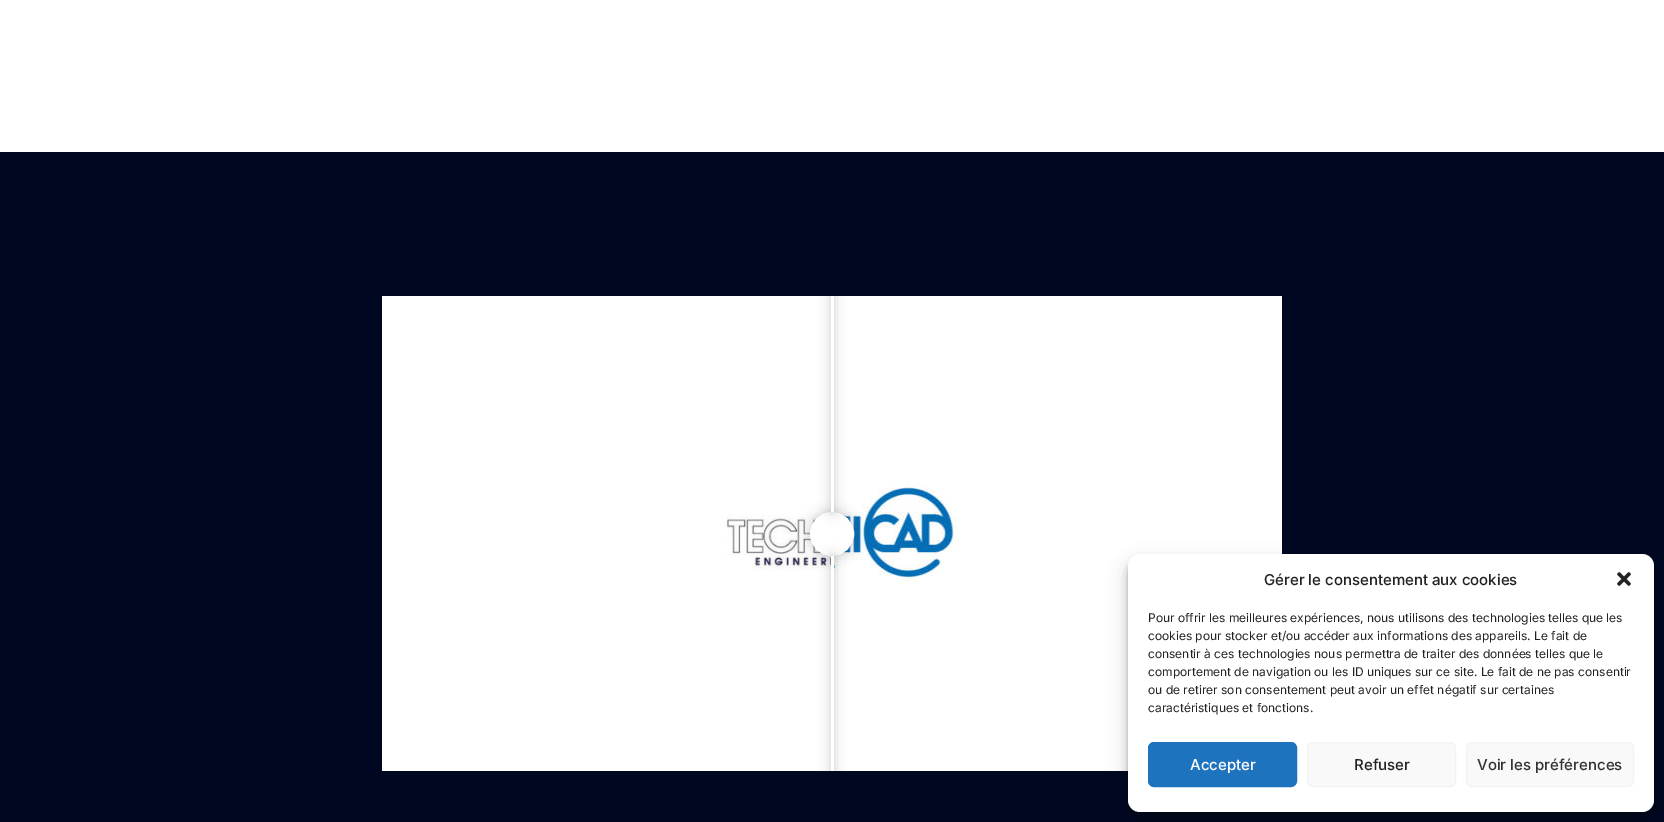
%!PS-Adobe-3.0
%%BoundingBox: 0 0 1664 822
%%LanguageLevel: 3
%%Pages: 1
%%EndComments
%%BeginProlog
/f { fill } bind def
/S { stroke } bind def
/q { gsave } bind def
/Q { grestore } bind def
/w { setlinewidth } bind def
/fn { [ exch dup neg 0 0 3 -1 roll 0 0 ] selectfont } def
/tx { moveto show } def
/bx { rectfill } def
/al { dup .setfillconstantalpha .setstrokeconstantalpha } def
/ci { newpath 0 360 arc closepath } def
/rr { 5 dict begin { /r /h /w /y /x } { exch def } forall
  x r add y moveto x w add y 2 copy h add r arct x w add y h add x 1 index r arct
  x y h add x y r arct x y 2 copy exch w add exch r arct closepath end } def
/sh { 12 dict begin { /a /b /q /h /w /y /x } { exch def } forall gsave /was 0 def
  9 -2 -9 { dup b mul 4 div /e exch def 1 sub .425 mul 2.718 exch exp 1 add a .99 .min exch div /now exch def
    1 1 now sub 1 was sub div sub al /was now def
    w h .min e 2 mul add 0 gt { x e sub y e sub w e 2 mul add h e 2 mul add
      q e add b .6 mul add w h .min 2 div e add .min 0 .max rr fill } if } for grestore end } def
/im { 5 dict begin { /h /w /y /x /name } { exch def } forall
  gsave x y translate w h scale
  w h 8 [w 0 0 h 0 0] name (r) file false 3 colorimage grestore end } def
%%EndProlog
%%BeginSetup
<< /PageSize [1664 822] /PageUsesTransparency true >> setpagedevice
%%EndSetup
%%Page: 1 1
0 .pushpdf14devicefilter
0 822 translate 1 -1 scale
4 setmiterlimit
1 setgray
0 0 1664 822 bx
0 0.027 0.129 setrgbcolor
0 152 1664 670 bx
(image0.raw) 382 296 450 475 im
(image1.raw) 832 296 450 475 im
0.2 setgray
810 512 44 44 22 6 0.25 sh
1 setgray
832 534 20.5 ci q f Q
3 w
S
q
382 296 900 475 rectclip
0.2 setgray
831 -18 3 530 0 6 0.25 sh
Q
831 296 3 216 bx
q
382 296 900 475 rectclip
0.2 setgray
831 556 3 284 0 6 0.25 sh
Q
831 556 3 215 bx
0 setgray
1128 560 526 258 12 3 0.23 sh
1128 564 526 258 12 10 0.19 sh
1 setgray
1128 554 526 258 12 rr f
/Inter-Medium 15 fn
0.133 setgray
(Gérer le consentement aux cookies) 1264 585 tx
(image2.raw) 1617 572 14 14 im
/Inter-Regular 12 fn
(Pour offrir les meilleures expériences, nous utilisons des technologies telles que les) 1148 622 tx
(cookies pour stocker et/ou accéder aux informations des appareils. Le fait de) 1148 640 tx
(consentir à ces technologies nous permettra de traiter des données telles que le) 1148 658 tx
(comportement de navigation ou les ID uniques sur ce site. Le fait de ne pas consentir) 1148 676 tx
(ou de retirer son consentement peut avoir un effet négatif sur certaines) 1148 694 tx
(caractéristiques et fonctions.) 1148 712 tx
0.118 0.451 0.745 setrgbcolor
1148.5 742.5 148 44 5.5 rr q f Q
1 w
S
/Inter-Medium 15 fn
1 setgray
(Accepter) 1190 770 tx
0.976 setgray
1307.5 742.5 148 44 5.5 rr q f Q
0.949 setgray
S
0.133 setgray
(Refuser) 1354 770 tx
0.976 setgray
1466.5 742.5 167 44 5.5 rr q f Q
0.949 setgray
S
0.2 setgray
(Voir les préférences) 1477 770 tx
.poppdf14devicefilter showpage
%%EOF
